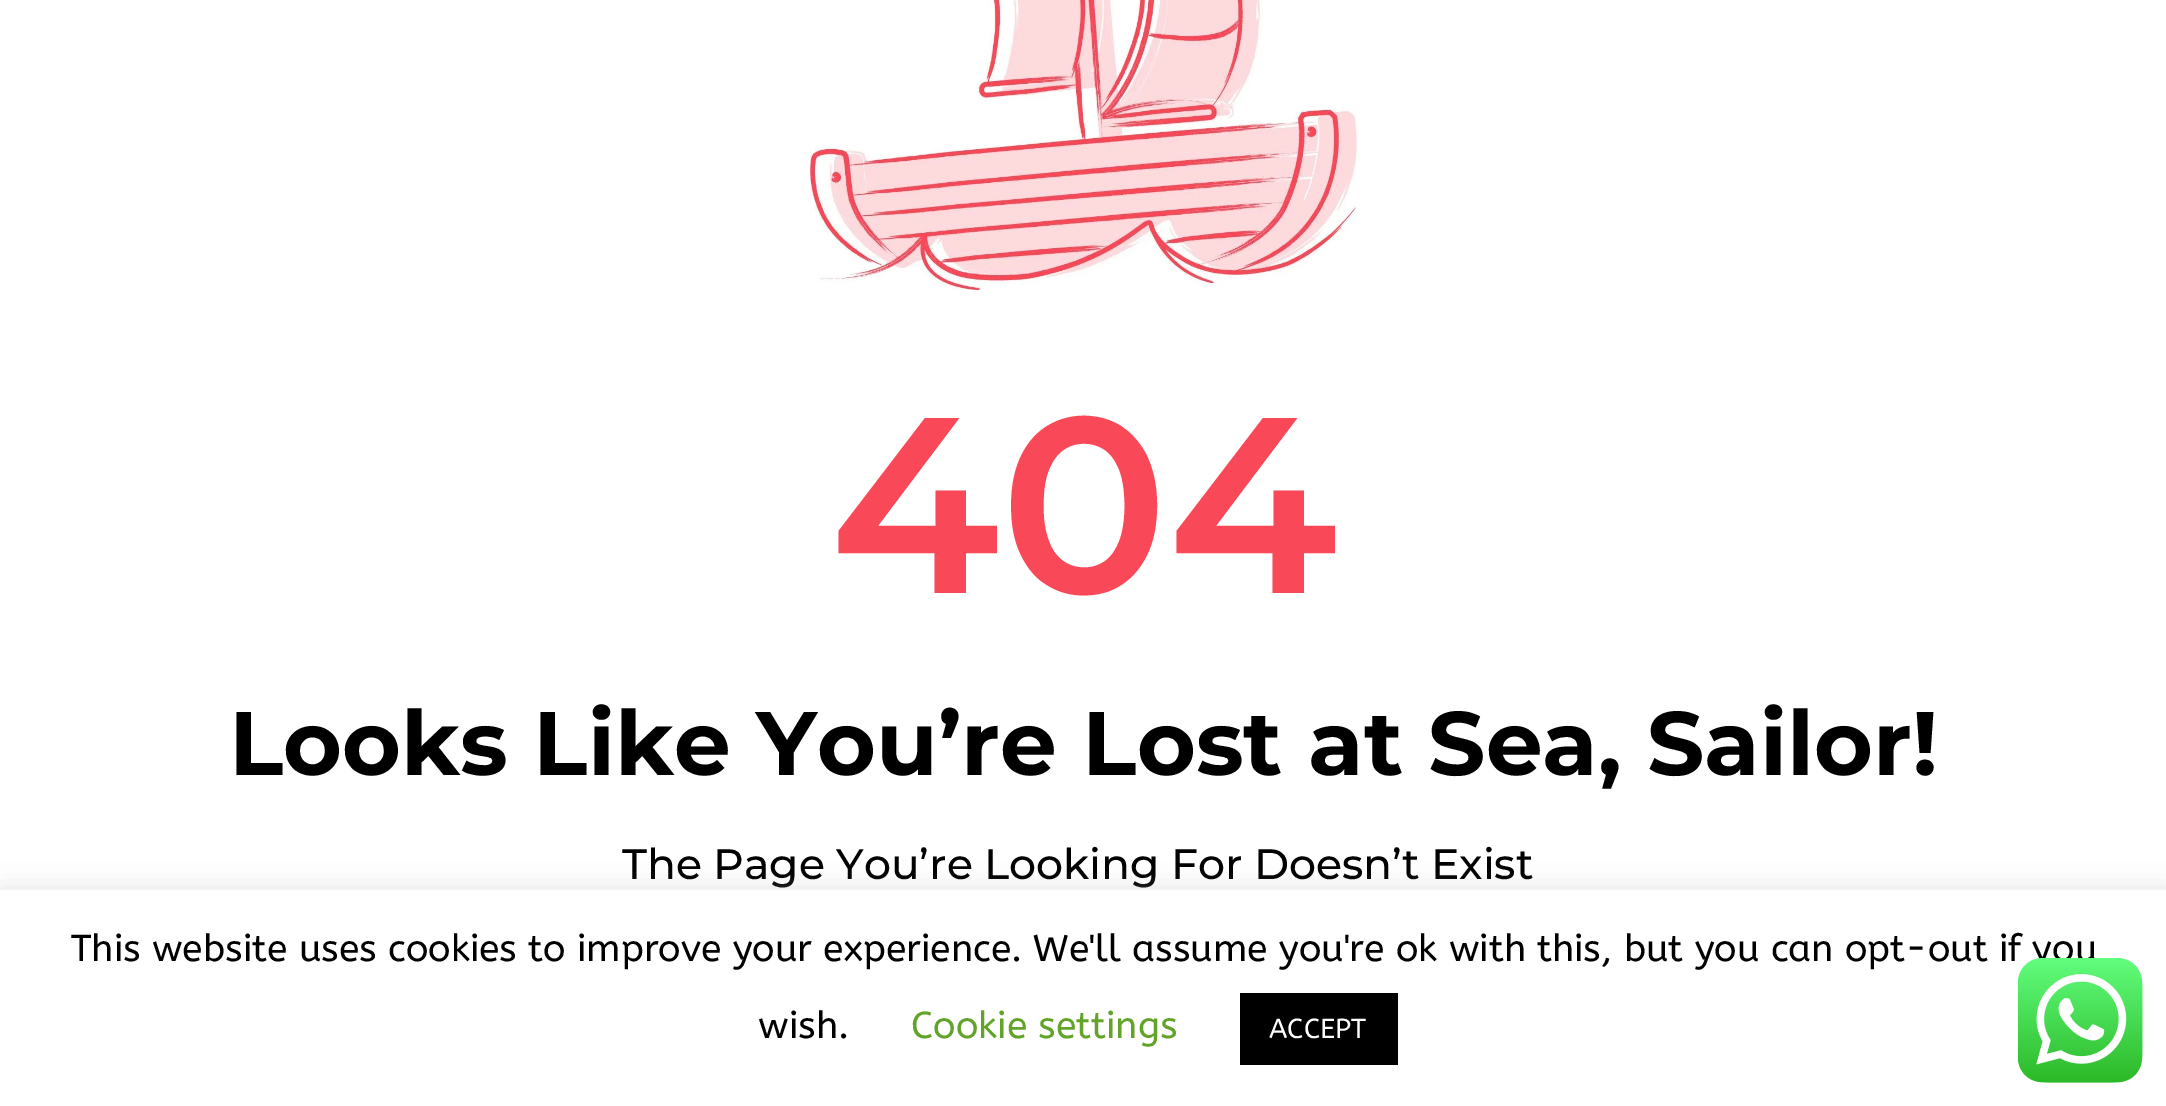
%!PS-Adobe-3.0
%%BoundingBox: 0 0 2166 1106
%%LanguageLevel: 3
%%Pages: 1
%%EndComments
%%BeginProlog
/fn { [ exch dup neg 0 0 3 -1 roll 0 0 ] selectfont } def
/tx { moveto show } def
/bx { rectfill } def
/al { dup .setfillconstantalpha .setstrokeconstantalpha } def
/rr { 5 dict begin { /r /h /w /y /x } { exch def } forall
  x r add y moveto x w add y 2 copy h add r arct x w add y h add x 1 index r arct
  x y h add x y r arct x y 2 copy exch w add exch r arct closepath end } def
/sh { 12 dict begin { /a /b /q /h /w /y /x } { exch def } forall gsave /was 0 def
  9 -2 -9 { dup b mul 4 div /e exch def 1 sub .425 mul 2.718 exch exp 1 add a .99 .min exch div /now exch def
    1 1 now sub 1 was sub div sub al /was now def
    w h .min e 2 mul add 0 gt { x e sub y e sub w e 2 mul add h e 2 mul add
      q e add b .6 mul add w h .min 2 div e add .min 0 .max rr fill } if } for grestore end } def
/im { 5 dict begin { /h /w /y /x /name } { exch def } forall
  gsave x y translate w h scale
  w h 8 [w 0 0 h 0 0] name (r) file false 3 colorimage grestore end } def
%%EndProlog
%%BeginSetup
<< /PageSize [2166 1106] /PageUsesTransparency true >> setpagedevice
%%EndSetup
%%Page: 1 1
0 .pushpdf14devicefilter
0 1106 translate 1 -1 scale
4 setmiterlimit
1 setgray
0 0 2166 1106 bx
(image0.raw) 810 0 550 290 im
/Montserrat-SemiBold 250 fn
0.976 0.282 0.341 setrgbcolor
(404) 830 593 tx
/Montserrat-Bold 90 fn
0 setgray
(Looks Like You’re Lost at Sea, Sailor!) 229 775 tx
/Montserrat-Medium 42.5 fn
(The Page You’re Looking For Doesn’t Exist) 622 879 tx
0.675 0.671 0.671 setrgbcolor
0 888 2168 217 0 12.5 0.3 sh
1 setgray
0 890 2166 216 bx
/ABeeZee-Regular 37.5 fn
0 setgray
(This website uses cookies to improve your experience. We'll assume you're ok with this, but you can opt-out if you) 71 961 tx
(wish.) 758 1038 tx
0.384 0.639 0.161 setrgbcolor
(Cookie settings) 911 1038 tx
0 setgray
1240 993 158 72 bx
/ABeeZee-Regular 27.5 fn
1 setgray
(ACCEPT) 1269 1038 tx
(image1.raw) 2018 958 125 125 im
.poppdf14devicefilter showpage
%%EOF
